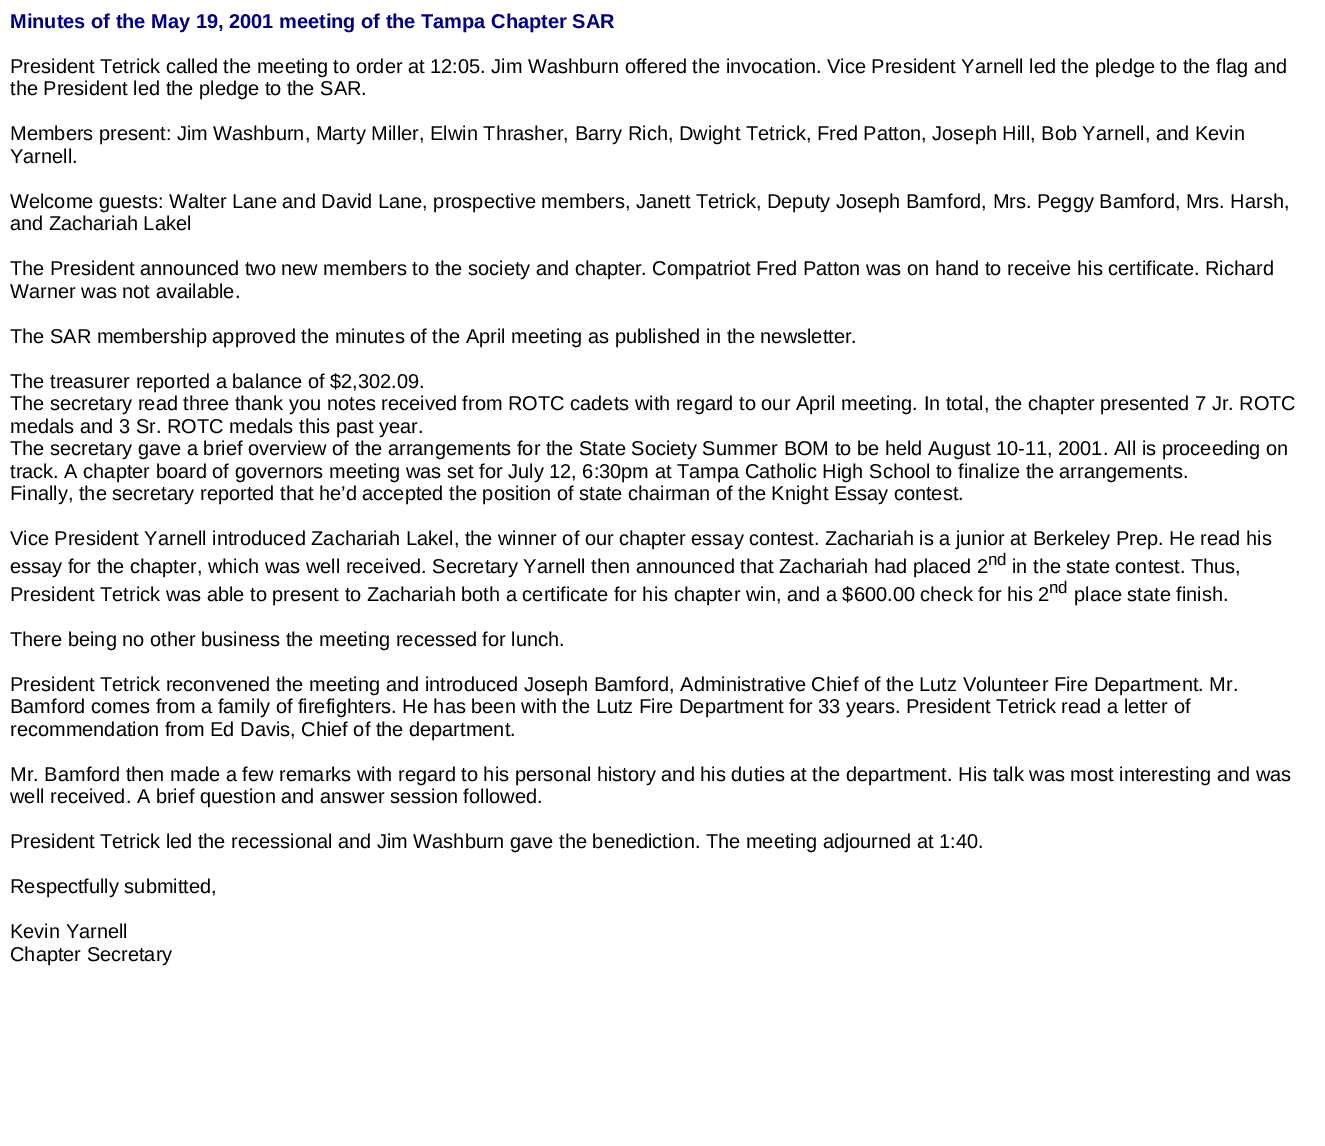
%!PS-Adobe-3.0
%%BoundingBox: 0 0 1325 1146
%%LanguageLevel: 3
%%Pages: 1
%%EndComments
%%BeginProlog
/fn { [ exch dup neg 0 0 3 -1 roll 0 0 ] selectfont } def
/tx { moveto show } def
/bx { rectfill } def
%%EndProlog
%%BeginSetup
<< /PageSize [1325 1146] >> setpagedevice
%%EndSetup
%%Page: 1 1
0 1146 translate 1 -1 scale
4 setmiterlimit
1 setgray
0 0 1325 1146 bx
/LiberationSans-Bold 20 fn
0 0 0.502 setrgbcolor
(Minutes of the May 19, 2001 meeting of the Tampa Chapter SAR) 10 28 tx
/LiberationSans-Regular 20 fn
0 setgray
(President Tetrick called the meeting to order at 12:05. Jim Washburn offered the invocation. Vice President Yarnell led the pledge to the flag and) 10 73 tx
(the President led the pledge to the SAR.) 10 95 tx
(Members present: Jim Washburn, Marty Miller, Elwin Thrasher, Barry Rich, Dwight Tetrick, Fred Patton, Joseph Hill, Bob Yarnell, and Kevin) 10 140 tx
(Yarnell.) 10 163 tx
(Welcome guests: Walter Lane and David Lane, prospective members, Janett Tetrick, Deputy Joseph Bamford, Mrs. Peggy Bamford, Mrs. Harsh,) 10 208 tx
(and Zachariah Lakel) 10 230 tx
(The President announced two new members to the society and chapter. Compatriot Fred Patton was on hand to receive his certificate. Richard) 10 275 tx
(Warner was not available.) 10 298 tx
(The SAR membership approved the minutes of the April meeting as published in the newsletter.) 10 343 tx
(The treasurer reported a balance of $2,302.09.) 10 388 tx
(The secretary read three thank you notes received from ROTC cadets with regard to our April meeting. In total, the chapter presented 7 Jr. ROTC) 10 410 tx
(medals and 3 Sr. ROTC medals this past year.) 10 433 tx
(The secretary gave a brief overview of the arrangements for the State Society Summer BOM to be held August 10-11, 2001. All is proceeding on) 10 455 tx
(track. A chapter board of governors meeting was set for July 12, 6:30pm at Tampa Catholic High School to finalize the arrangements.) 10 478 tx
(Finally, the secretary reported that he’d accepted the position of state chairman of the Knight Essay contest.) 10 500 tx
(Vice President Yarnell introduced Zachariah Lakel, the winner of our chapter essay contest. Zachariah is a junior at Berkeley Prep. He read his) 10 545 tx
(essay for the chapter, which was well received. Secretary Yarnell then announced that Zachariah had placed 2) 10 573 tx
/LiberationSans-Regular 17 fn
(nd) 988 565 tx
/LiberationSans-Regular 20 fn
(in the state contest. Thus,) 1012 573 tx
(President Tetrick was able to present to Zachariah both a certificate for his chapter win, and a $600.00 check for his 2) 10 601 tx
/LiberationSans-Regular 17 fn
(nd) 1049 593 tx
/LiberationSans-Regular 20 fn
(place state finish.) 1074 601 tx
(There being no other business the meeting recessed for lunch.) 10 646 tx
(President Tetrick reconvened the meeting and introduced Joseph Bamford, Administrative Chief of the Lutz Volunteer Fire Department. Mr.) 10 691 tx
(Bamford comes from a family of firefighters. He has been with the Lutz Fire Department for 33 years. President Tetrick read a letter of) 10 713 tx
(recommendation from Ed Davis, Chief of the department.) 10 736 tx
(Mr. Bamford then made a few remarks with regard to his personal history and his duties at the department. His talk was most interesting and was) 10 781 tx
(well received. A brief question and answer session followed.) 10 803 tx
(President Tetrick led the recessional and Jim Washburn gave the benediction. The meeting adjourned at 1:40.) 10 848 tx
(Respectfully submitted,) 10 893 tx
(Kevin Yarnell) 10 938 tx
(Chapter Secretary) 10 961 tx
showpage
%%EOF
